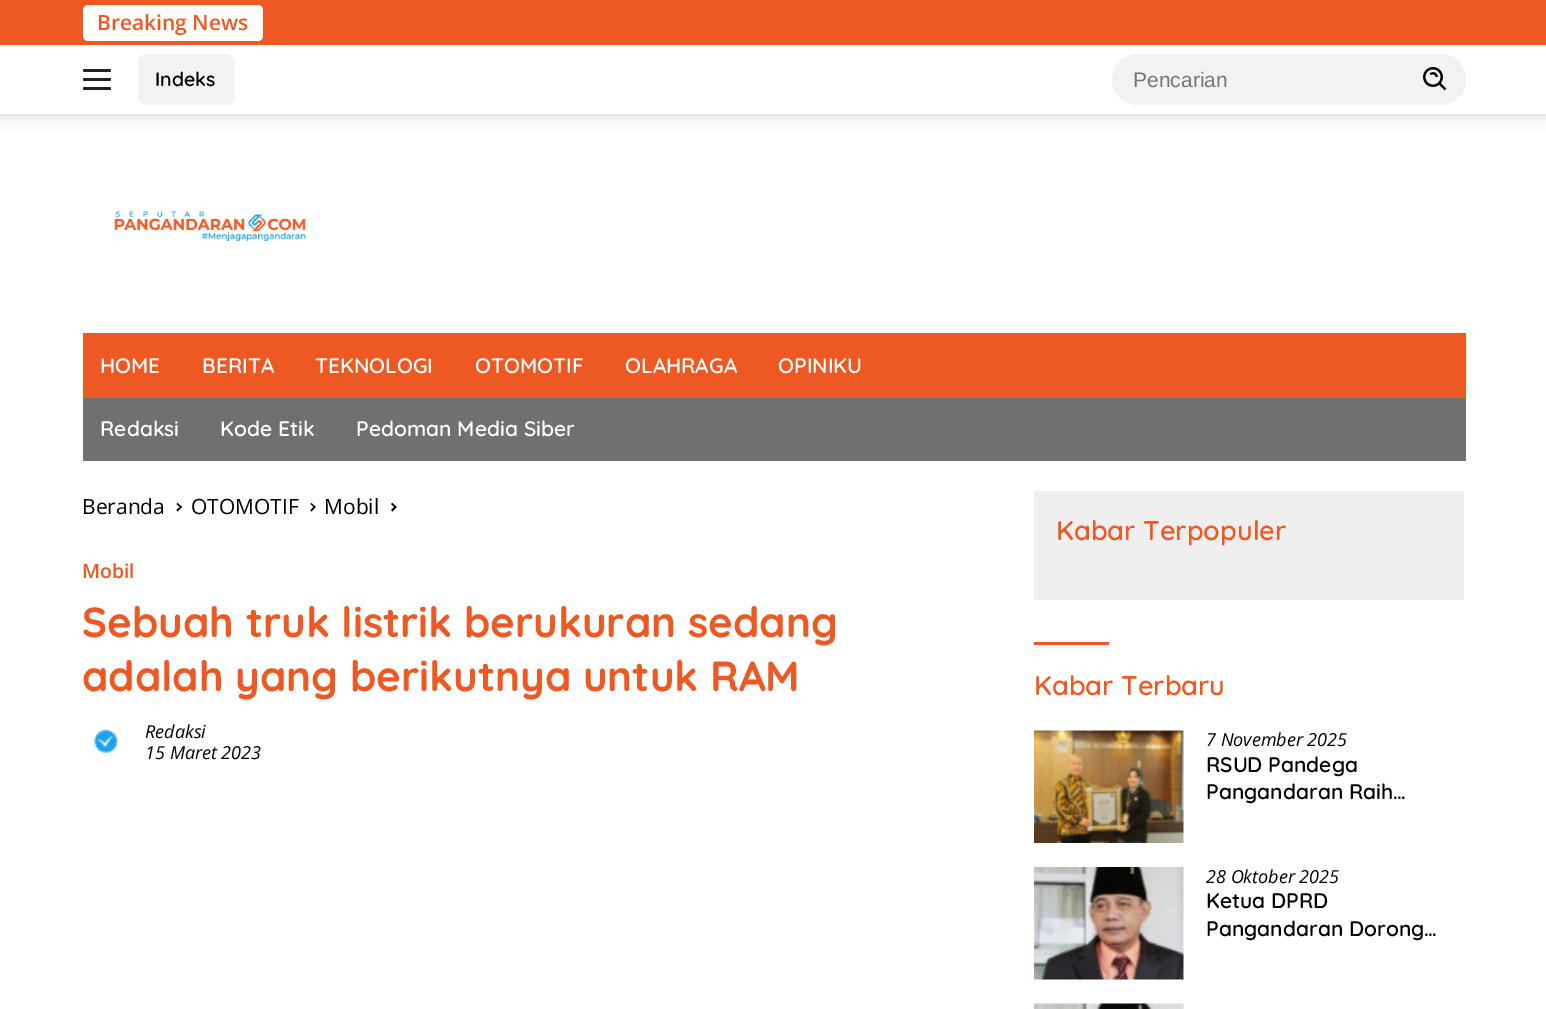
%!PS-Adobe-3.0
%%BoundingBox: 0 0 1546 1009
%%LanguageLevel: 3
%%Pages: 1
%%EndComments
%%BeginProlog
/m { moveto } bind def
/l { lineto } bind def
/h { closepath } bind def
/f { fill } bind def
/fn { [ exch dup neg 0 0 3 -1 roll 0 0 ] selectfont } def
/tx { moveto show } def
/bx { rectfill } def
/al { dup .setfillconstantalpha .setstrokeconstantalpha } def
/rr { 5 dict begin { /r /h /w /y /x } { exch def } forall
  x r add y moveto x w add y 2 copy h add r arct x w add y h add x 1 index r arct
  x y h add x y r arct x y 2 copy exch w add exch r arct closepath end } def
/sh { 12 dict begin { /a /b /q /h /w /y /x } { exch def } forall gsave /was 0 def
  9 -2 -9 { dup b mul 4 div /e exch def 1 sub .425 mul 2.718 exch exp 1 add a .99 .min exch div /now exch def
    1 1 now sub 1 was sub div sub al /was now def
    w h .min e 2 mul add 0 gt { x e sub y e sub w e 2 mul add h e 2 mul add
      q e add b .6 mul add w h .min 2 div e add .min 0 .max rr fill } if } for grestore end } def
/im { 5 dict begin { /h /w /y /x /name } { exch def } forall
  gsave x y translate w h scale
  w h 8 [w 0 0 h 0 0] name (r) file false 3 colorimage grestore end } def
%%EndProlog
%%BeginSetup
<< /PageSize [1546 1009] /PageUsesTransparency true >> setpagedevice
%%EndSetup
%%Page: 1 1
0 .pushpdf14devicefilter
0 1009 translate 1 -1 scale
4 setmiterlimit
1 setgray
0 0 1546 1009 bx
0 setgray
0 0 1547 114 0 7.5 0.2 sh
1 setgray
0 45 1546 69 bx
0.933 0.345 0.133 setrgbcolor
0 0 1546 45 bx
1 setgray
83 5 180 36 5 rr f
/OpenSans-SemiBold 21 fn
0.933 0.345 0.133 setrgbcolor
(Breaking News) 97 30 tx
0.133 setgray
83 69 28 3 1.5 rr f
83 78 28 3 1.5 rr f
83 87 28 3 1.5 rr f
0.949 setgray
138 54 96 51 8 rr f
/Quicksand-SemiBold 19.5 fn
0 setgray
(Indeks) 155 86 tx
0.949 setgray
1112 54 354 51 25.5 rr f
/LiberationSans-Regular 21 fn
0.459 setgray
(Pencarian) 1133 87 tx
(image0.raw) 1423 67 24 24 im
(image1.raw) 114 211 192 30 im
0.439 setgray
83 398 1383 63 bx
0.933 0.345 0.133 setrgbcolor
83 333 1383 65 bx
/Quicksand-SemiBold 21 fn
1 setgray
(HOME) 100 373 tx
(BERITA) 202 373 tx
(TEKNOLOGI) 315 373 tx
(OTOMOTIF) 475 373 tx
(OLAHRAGA) 625 373 tx
(OPINIKU) 778 373 tx
(Redaksi) 100 436 tx
(Kode Etik) 220 436 tx
(Pedoman Media Siber) 356 436 tx
/OpenSans-Regular 21 fn
0 setgray
(Beranda) 82 514 tx
176.5 504 m 177.5 503 l 182 507 l 181 508 l h f
176.5 510 m 181 506 l 182 507 l 177.5 511.5 l h f
(OTOMOTIF) 191 514 tx
310.5 504 m 311.5 503 l 315.5 507 l 314.5 508 l h f
310.5 510 m 314.5 506 l 315.5 507 l 311.5 511.5 l h f
(Mobil) 324 514 tx
391 504 m 392.5 503 l 396.5 507 l 395.5 508 l h f
391 510 m 395.5 506 l 396.5 507 l 392.5 511.5 l h f
/OpenSans-SemiBold 19.5 fn
0.933 0.345 0.133 setrgbcolor
(Mobil) 82 578 tx
/Quicksand-Bold 42 fn
(Sebuah truk listrik berukuran sedang) 82 637 tx
(adalah yang berikutnya untuk RAM) 82 691 tx
(image2.raw) 93 728 26 26 im
/OpenSans-Italic 18 fn
0 setgray
(Redaksi) 145 738 tx
(15 Maret 2023) 145 759 tx
0.937 setgray
1034 491 430 109 bx
/Quicksand-SemiBold 27 fn
0.933 0.345 0.133 setrgbcolor
(Kabar Terpopuler) 1056 540 tx
1034 642 75 3 bx
(Kabar Terbaru) 1034 695 tx
(image3.raw) 1034 730 150 113 im
/OpenSans-Italic 18 fn
0 setgray
(7 November 2025) 1206 746 tx
/Quicksand-SemiBold 21 fn
(RSUD Pandega) 1206 772 tx
(Pangandaran Raih…) 1206 799 tx
(image4.raw) 1034 867 150 113 im
/OpenSans-Italic 18 fn
(28 Oktober 2025) 1206 883 tx
/Quicksand-SemiBold 21 fn
(Ketua DPRD) 1206 908 tx
(Pangandaran Dorong…) 1206 936 tx
(image5.raw) 1034 1003 150 6 im
.poppdf14devicefilter showpage
%%EOF
